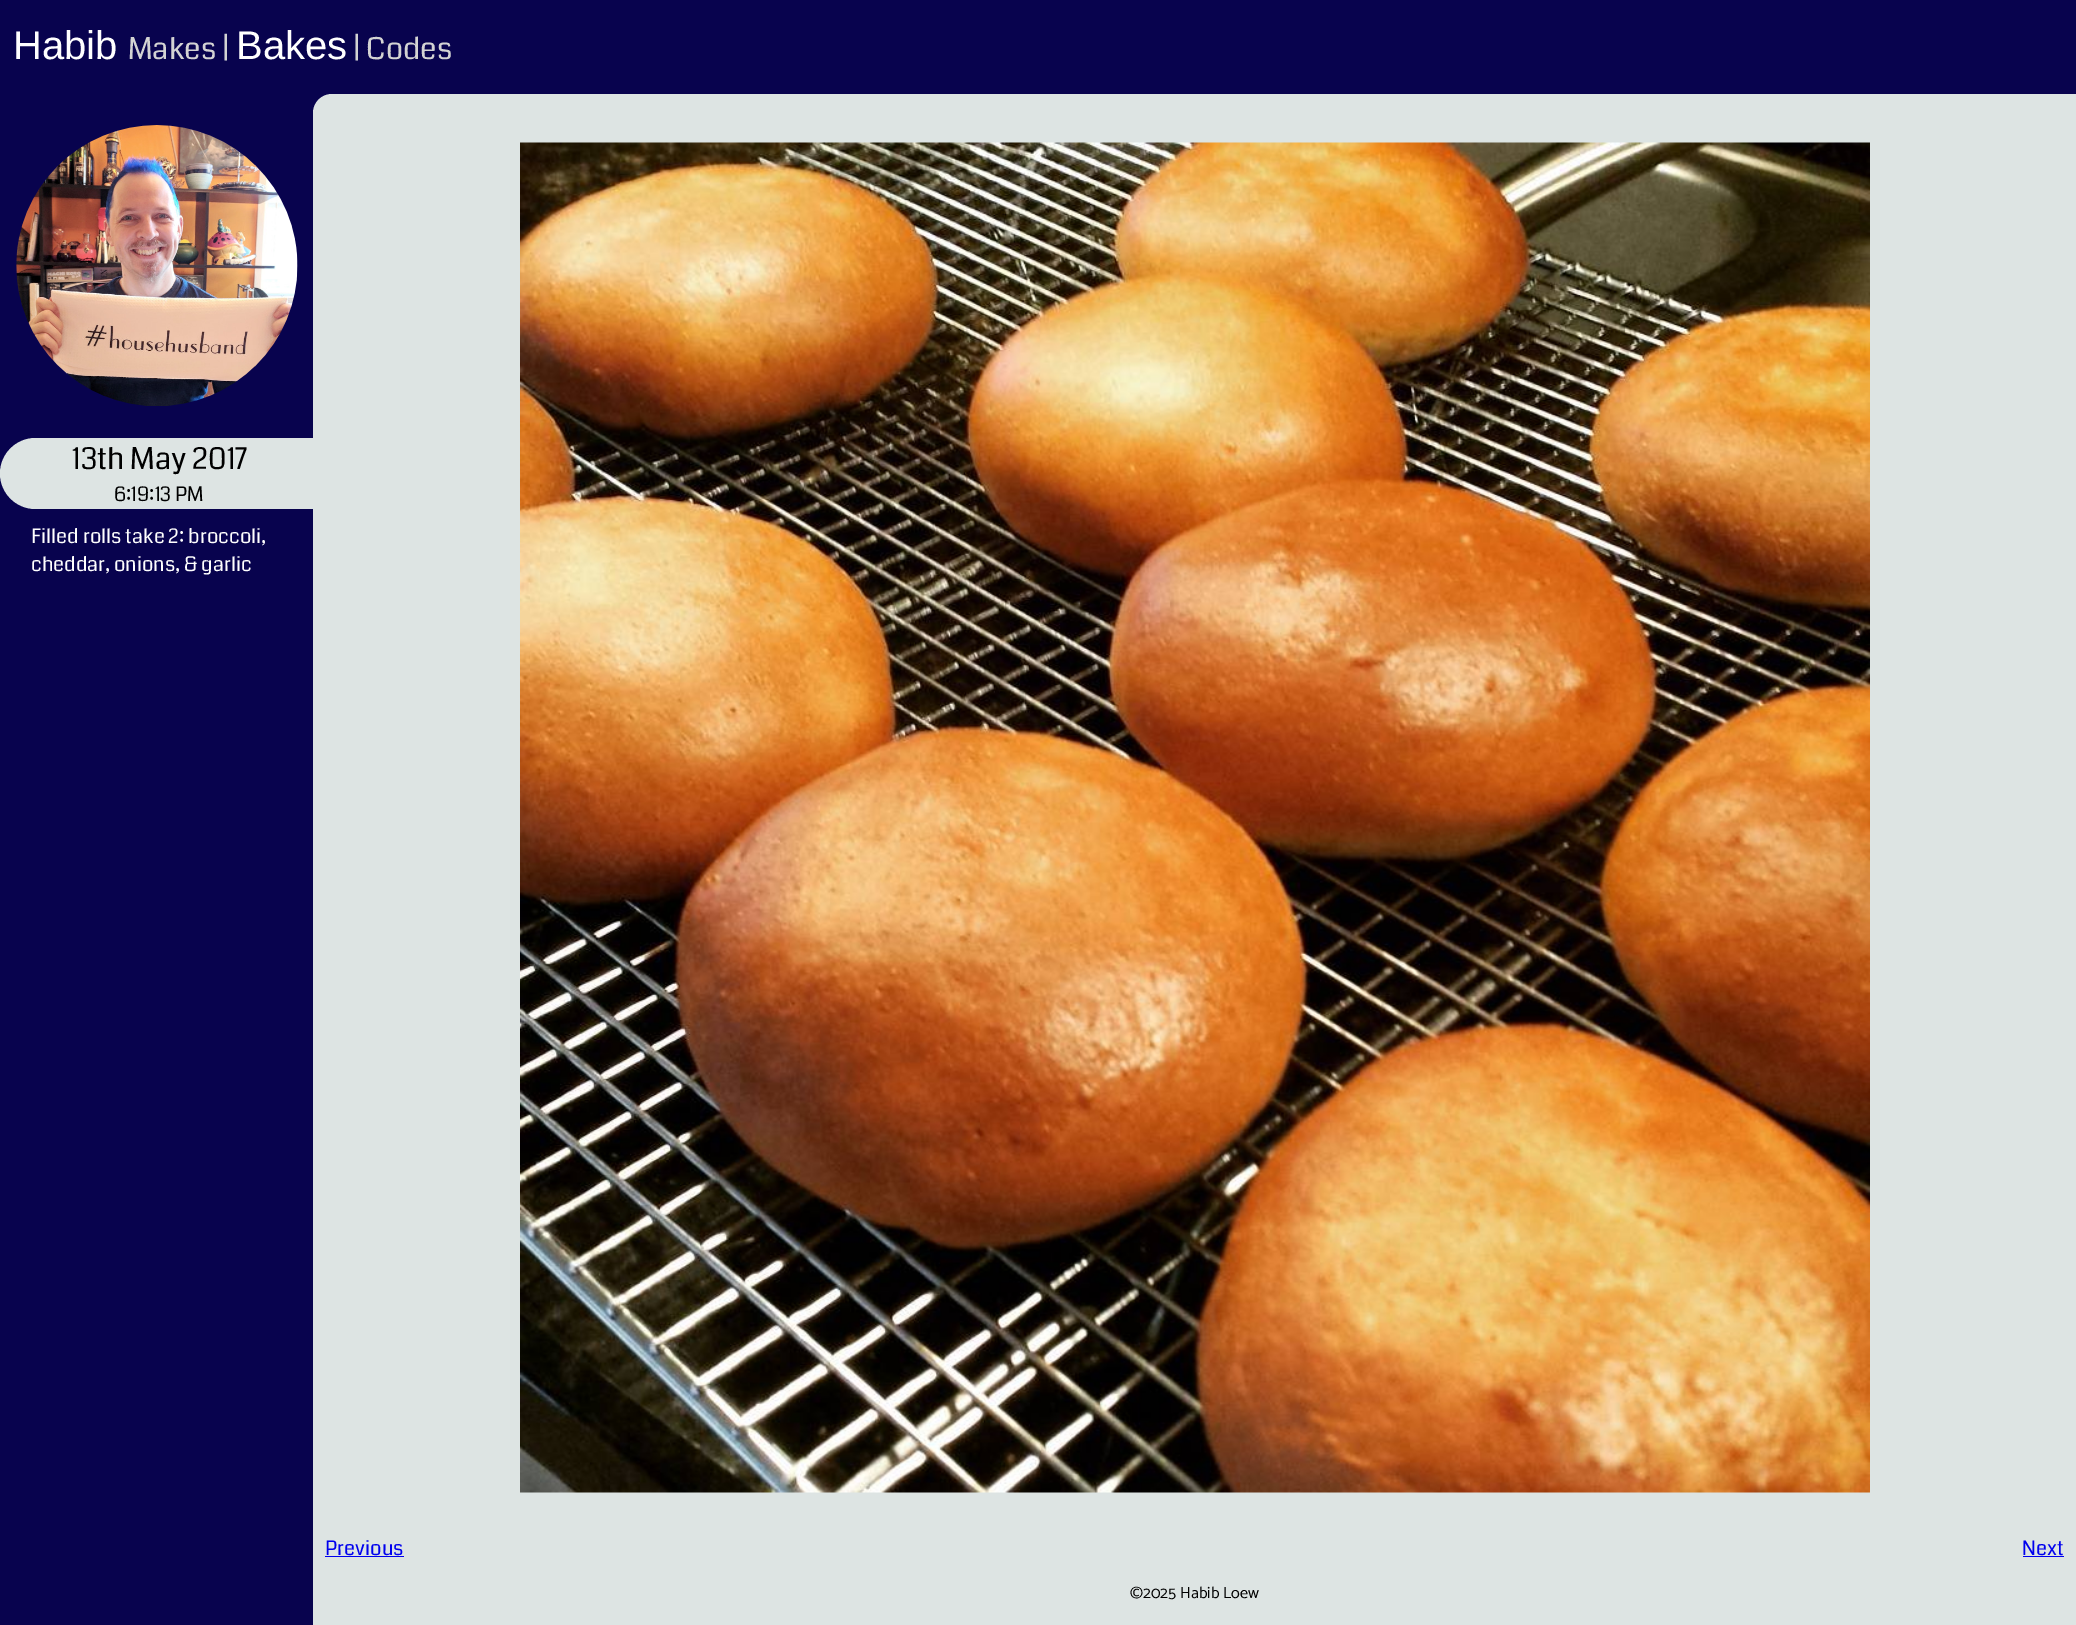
%!PS-Adobe-3.0
%%BoundingBox: 0 0 2076 1625
%%LanguageLevel: 3
%%Pages: 1
%%EndComments
%%BeginProlog
/m { moveto } bind def
/l { lineto } bind def
/c { curveto } bind def
/h { closepath } bind def
/f { fill } bind def
/fn { [ exch dup neg 0 0 3 -1 roll 0 0 ] selectfont } def
/tx { moveto show } def
/bx { rectfill } def
/im { 5 dict begin { /h /w /y /x /name } { exch def } forall
  gsave x y translate w h scale
  w h 8 [w 0 0 h 0 0] name (r) file false 3 colorimage grestore end } def
%%EndProlog
%%BeginSetup
<< /PageSize [2076 1625] >> setpagedevice
%%EndSetup
%%Page: 1 1
0 1625 translate 1 -1 scale
4 setmiterlimit
0.031 0.012 0.306 setrgbcolor
0 0 2076 1625 bx
/LiberationSans-Regular 40 fn
1 setgray
(Habib) 13 59 tx
/Coda-Regular 30 fn
0.827 setgray
(Makes |) 128 59 tx
/LiberationSans-Regular 40 fn
1 setgray
(Bakes) 236 59 tx
/Coda-Regular 30 fn
0.827 setgray
(| Codes) 353 59 tx
(image0.raw) 16 125 282 281 im
0.867 0.894 0.89 setrgbcolor
35.5 438 m 313 438 l 313 509 l 35.5 509 l 16 509 0 493 0 473.5 c 0 454 16 438 35.5 438 c h f
0 setgray
(13th May 2017) 72 469 tx
/Coda-Regular 20 fn
(6:19:13 PM) 114 501 tx
1 setgray
(Filled rolls take 2: broccoli,) 31 543 tx
(cheddar, onions, & garlic) 31 571 tx
0.867 0.894 0.89 setrgbcolor
332 94 m 2076 94 l 2076 1625 l 313 1625 l 313 113 l 313 102.5 321.5 94 332 94 c h f
(image1.raw) 520 142 1350 1351 im
0 0 0.933 setrgbcolor
(Previous) 325 1555 tx
325 1556 79 1 bx
(Next) 2022 1555 tx
2023 1556 41 1 bx
/Catamaran-Thin 16.25 fn
0 setgray
(©2025 Habib Loew) 1130 1598 tx
showpage
%%EOF
